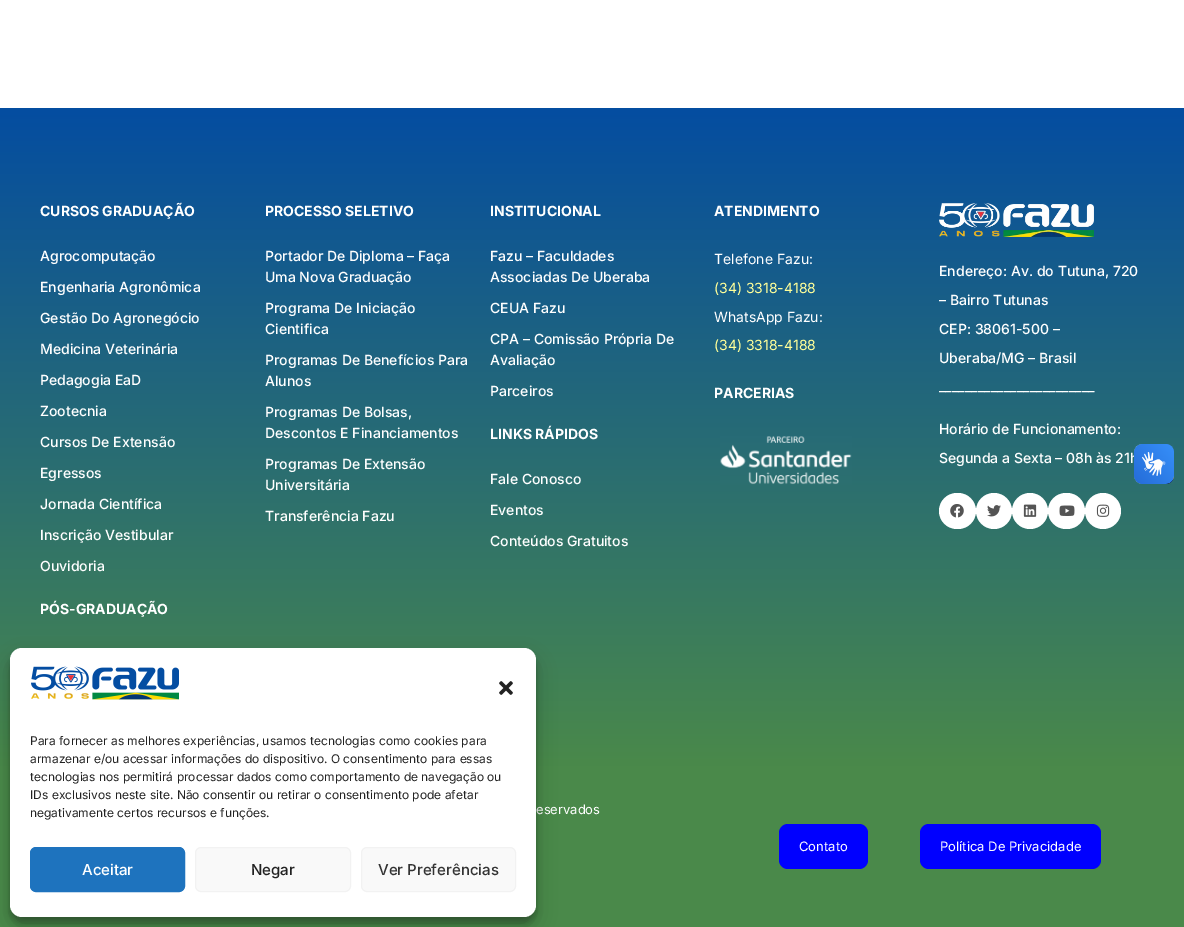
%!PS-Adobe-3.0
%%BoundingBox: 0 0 1184 927
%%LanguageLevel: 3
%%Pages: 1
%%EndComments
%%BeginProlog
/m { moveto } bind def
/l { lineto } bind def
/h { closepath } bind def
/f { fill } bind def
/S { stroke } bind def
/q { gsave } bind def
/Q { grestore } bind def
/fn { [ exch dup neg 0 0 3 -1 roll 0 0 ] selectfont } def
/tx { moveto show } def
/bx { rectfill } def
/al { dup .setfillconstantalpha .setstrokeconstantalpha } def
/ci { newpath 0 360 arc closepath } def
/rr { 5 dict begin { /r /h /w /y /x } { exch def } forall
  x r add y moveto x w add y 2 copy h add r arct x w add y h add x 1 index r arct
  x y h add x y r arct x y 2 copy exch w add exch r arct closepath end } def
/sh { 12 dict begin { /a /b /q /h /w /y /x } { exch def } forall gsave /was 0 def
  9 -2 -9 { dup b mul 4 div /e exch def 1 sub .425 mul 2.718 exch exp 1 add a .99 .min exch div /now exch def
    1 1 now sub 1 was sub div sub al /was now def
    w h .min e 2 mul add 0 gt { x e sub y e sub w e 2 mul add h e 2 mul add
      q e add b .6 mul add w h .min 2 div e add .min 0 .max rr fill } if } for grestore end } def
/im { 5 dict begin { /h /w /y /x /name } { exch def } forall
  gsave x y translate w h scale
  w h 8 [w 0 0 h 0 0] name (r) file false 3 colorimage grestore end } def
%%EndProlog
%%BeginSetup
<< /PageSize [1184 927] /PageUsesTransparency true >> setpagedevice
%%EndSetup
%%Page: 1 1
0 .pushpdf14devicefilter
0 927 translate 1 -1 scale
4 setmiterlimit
1 setgray
0 0 1184 927 bx
q 0 108 m 1184 108 l 1184 767 l 0 767 l h clip newpath
<< /ShadingType 2 /ColorSpace /DeviceRGB /Coords [592 108 592 767] /Extend [true true] /Function << /FunctionType 2 /Domain [0 1] /C0 [0.016 0.302 0.631] /C1 [0.29 0.537 0.29] /N 1 >> >> shfill Q
/Inter-Bold 14 fn
(CURSOS GRADUAÇÃO) 40 216 tx
/Inter-Medium 14 fn
(Agrocomputação) 40 261 tx
(Engenharia Agronômica) 40 292 tx
(Gestão Do Agronegócio) 40 323 tx
(Medicina Veterinária) 40 354 tx
(Pedagogia EaD) 40 385 tx
(Zootecnia) 40 416 tx
(Cursos De Extensão) 40 447 tx
(Egressos) 40 478 tx
(Jornada Científica) 40 509 tx
(Inscrição Vestibular) 40 540 tx
(Ouvidoria) 40 571 tx
/Inter-Bold 14 fn
(PÓS-GRADUAÇÃO) 40 614 tx
(PROCESSO SELETIVO) 265 216 tx
/Inter-Medium 14 fn
(Portador De Diploma – Faça) 265 261 tx
(Uma Nova Graduação) 265 282 tx
(Programa De Iniciação) 265 313 tx
(Cientifica) 265 334 tx
(Programas De Benefícios Para) 265 365 tx
(Alunos) 265 386 tx
(Programas De Bolsas,) 265 417 tx
(Descontos E Financiamentos) 265 438 tx
(Programas De Extensão) 265 469 tx
(Universitária) 265 490 tx
(Transferência Fazu) 265 521 tx
/Inter-Bold 14 fn
(INSTITUCIONAL) 490 216 tx
/Inter-Medium 14 fn
(Fazu – Faculdades) 490 261 tx
(Associadas De Uberaba) 490 282 tx
(CEUA Fazu) 490 313 tx
(CPA – Comissão Própria De) 490 344 tx
(Avaliação) 490 365 tx
(Parceiros) 490 396 tx
/Inter-Bold 14 fn
(LINKS RÁPIDOS) 490 439 tx
/Inter-Medium 14 fn
(Fale Conosco) 490 484 tx
(Eventos) 490 515 tx
(Conteúdos Gratuitos) 490 546 tx
/Inter-Bold 14 fn
(ATENDIMENTO) 714 216 tx
/Inter-Regular 14 fn
(Telefone Fazu:) 714 264 tx
1 1 0.6 setrgbcolor
(\(34\) 3318-4188) 714 293 tx
1 setgray
(WhatsApp Fazu:) 714 322 tx
1 1 0.6 setrgbcolor
(\(34\) 3318-4188) 714 350 tx
/Inter-Bold 14 fn
1 setgray
(PARCERIAS) 714 398 tx
(image0.raw) 720 436 132 49 im
(image1.raw) 939 203 155 34 im
/Inter-Medium 14 fn
(Endereço: Av. do Tutuna, 720) 939 276 tx
(– Bairro Tutunas) 939 305 tx
(CEP: 38061-500 –) 939 334 tx
(Uberaba/MG – Brasil) 939 363 tx
(________________________) 939 391 tx
(Horário de Funcionamento:) 939 434 tx
(Segunda a Sexta – 08h às 21h) 939 463 tx
939 493 37 36 18 rr f
(image2.raw) 950 504 14 14 im
994 511 18 ci f
(image3.raw) 987 505 14 12 im
1030 511 18 ci f
(image4.raw) 1023 504 14 13 im
1048 493 37 36 18 rr f
(image5.raw) 1059 505 16 11 im
1103 511 18 ci f
(image6.raw) 1096 504 14 13 im
0.29 0.537 0.29 setrgbcolor
0 767 1184 160 bx
/Inter-Regular 13 fn
1 setgray
(eservados) 536 814 tx
0 0 1 setrgbcolor
779 824 89 45 9 rr f
1 setgray
(Contato) 799 851 tx
0 0 1 setrgbcolor
920 824 181 45 9 rr f
1 setgray
(Política De Privacidade) 940 851 tx
(image7.raw) 1134 444 40 40 im
(image8.raw) 1134 444 40 40 im
0 setgray
10 654 526 269 12 3 0.23 sh
10 658 526 269 12 10 0.19 sh
1 setgray
10 648 526 269 12 rr f
(image9.raw) 31 666 148 34 im
(image10.raw) 499 681 14 14 im
/Inter-Regular 12 fn
0.133 setgray
(Para fornecer as melhores experiências, usamos tecnologias como cookies para) 30 745 tx
(armazenar e/ou acessar informações do dispositivo. O consentimento para essas) 30 763 tx
(tecnologias nos permitirá processar dados como comportamento de navegação ou) 30 781 tx
(IDs exclusivos neste site. Não consentir ou retirar o consentimento pode afetar) 30 799 tx
(negativamente certos recursos e funções.) 30 817 tx
0.118 0.451 0.745 setrgbcolor
30.5 847.5 154 44 5.5 rr q f Q
S
/Inter-Medium 15 fn
1 setgray
(Aceitar) 82 875 tx
0.976 setgray
195.5 847.5 155 44 5.5 rr q f Q
0.949 setgray
S
0.133 setgray
(Negar) 251 875 tx
0.976 setgray
361.5 847.5 154 44 5.5 rr q f Q
0.949 setgray
S
0.2 setgray
(Ver Preferências) 378 875 tx
.poppdf14devicefilter showpage
%%EOF
